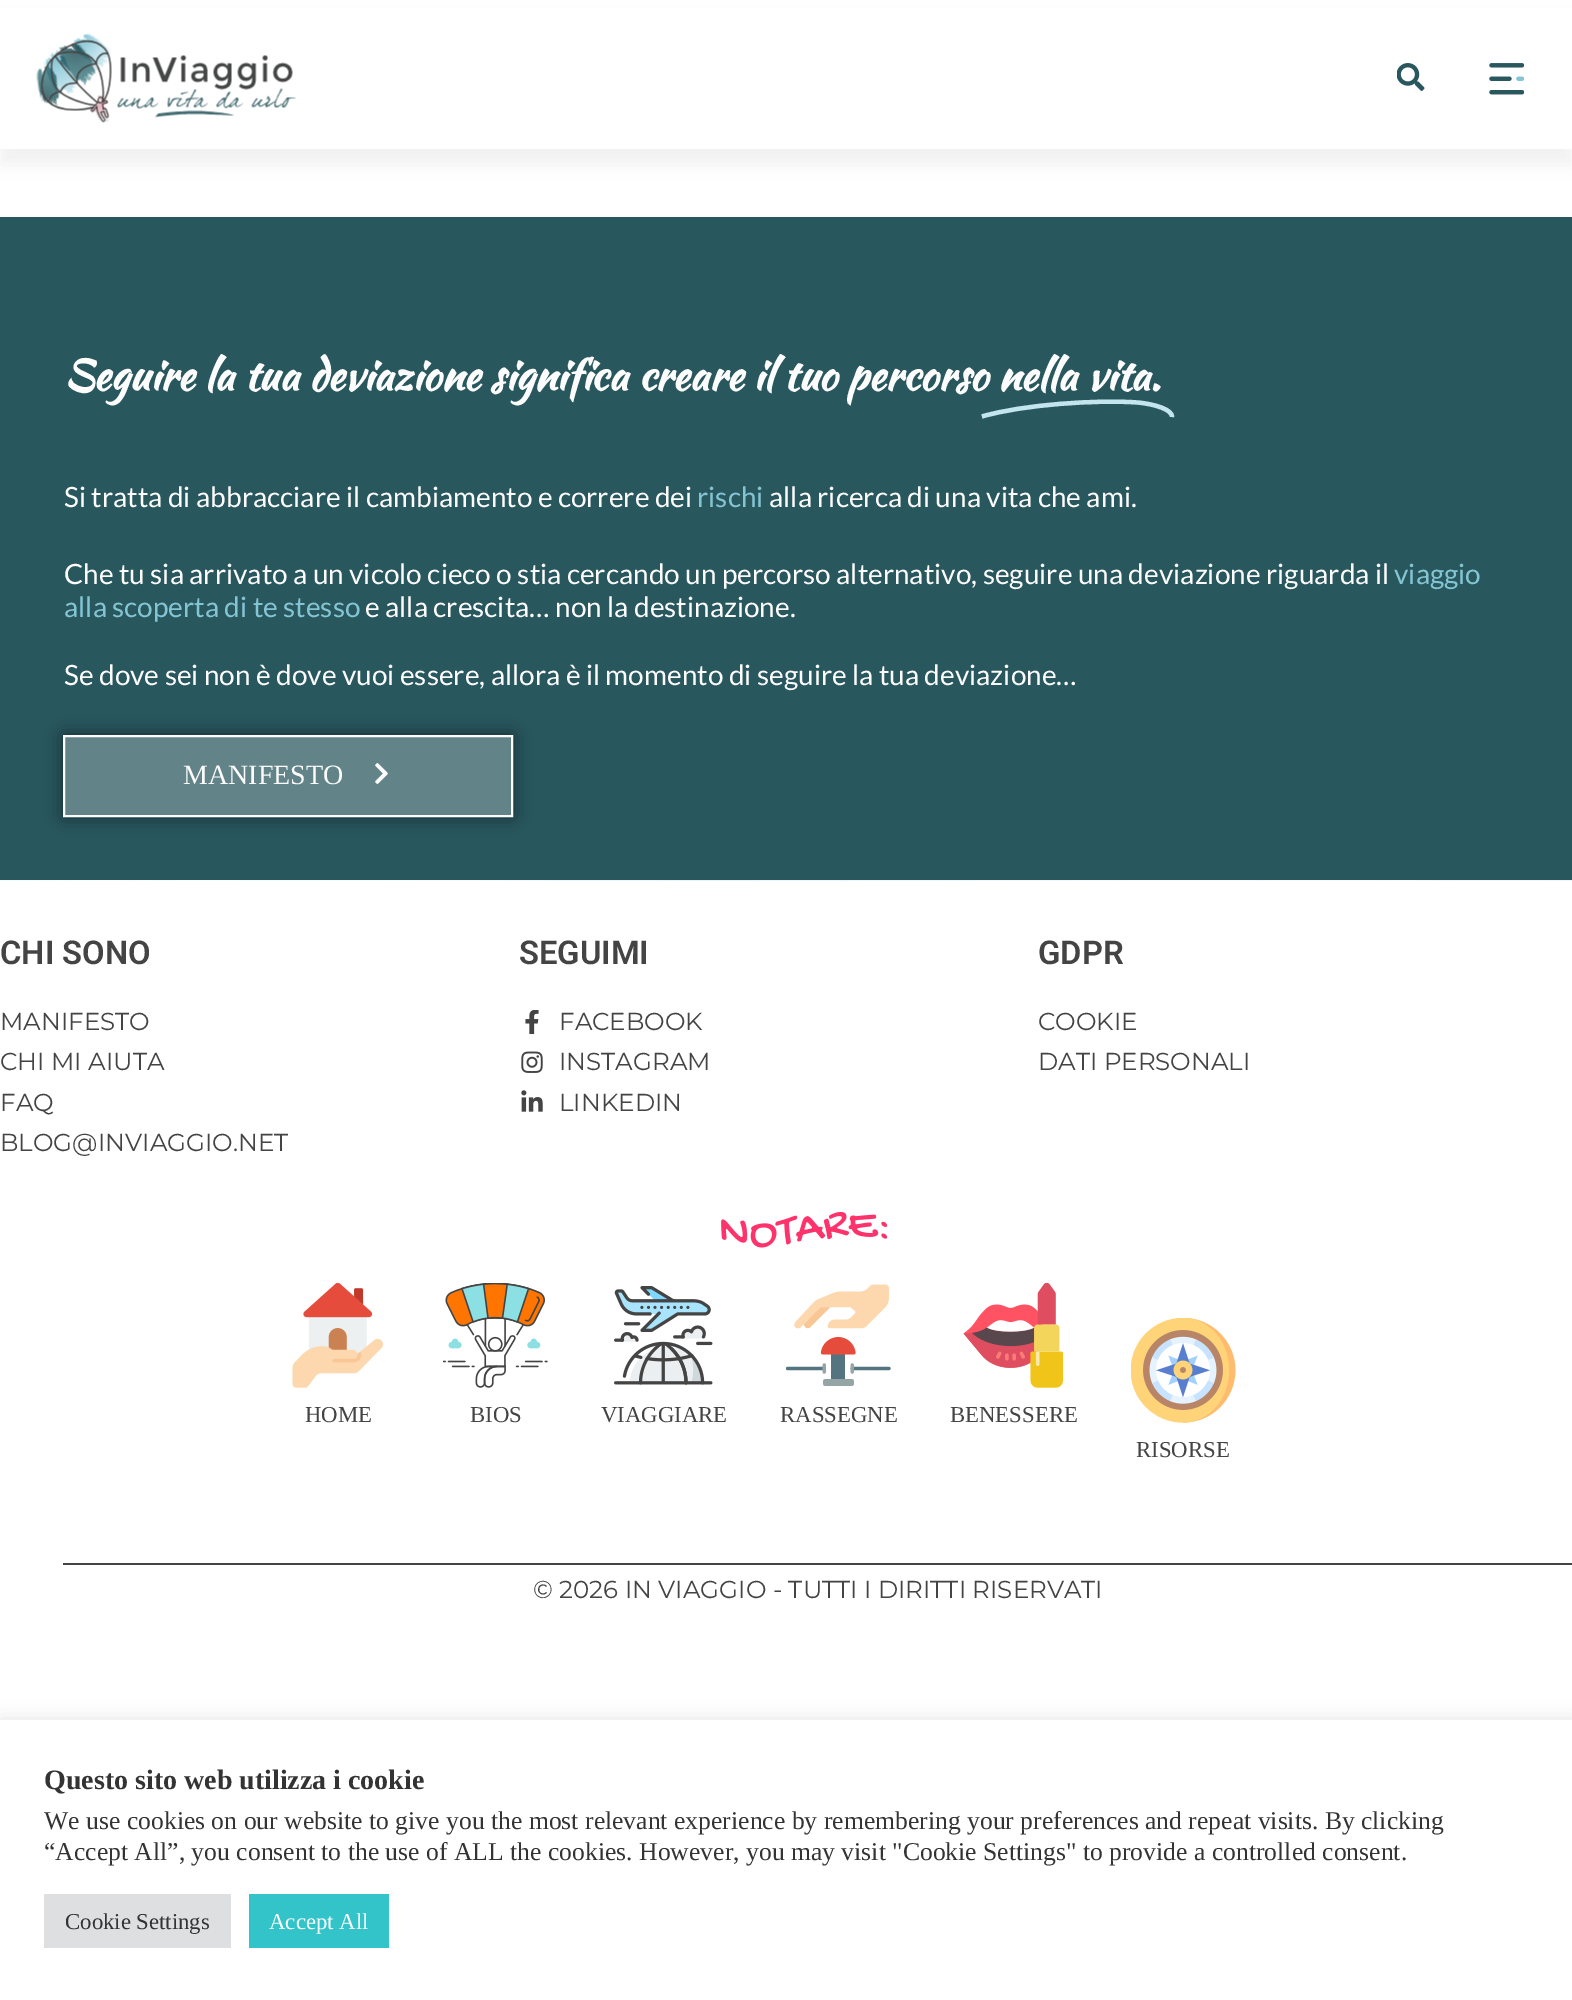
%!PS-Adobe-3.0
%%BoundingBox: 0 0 1572 2000
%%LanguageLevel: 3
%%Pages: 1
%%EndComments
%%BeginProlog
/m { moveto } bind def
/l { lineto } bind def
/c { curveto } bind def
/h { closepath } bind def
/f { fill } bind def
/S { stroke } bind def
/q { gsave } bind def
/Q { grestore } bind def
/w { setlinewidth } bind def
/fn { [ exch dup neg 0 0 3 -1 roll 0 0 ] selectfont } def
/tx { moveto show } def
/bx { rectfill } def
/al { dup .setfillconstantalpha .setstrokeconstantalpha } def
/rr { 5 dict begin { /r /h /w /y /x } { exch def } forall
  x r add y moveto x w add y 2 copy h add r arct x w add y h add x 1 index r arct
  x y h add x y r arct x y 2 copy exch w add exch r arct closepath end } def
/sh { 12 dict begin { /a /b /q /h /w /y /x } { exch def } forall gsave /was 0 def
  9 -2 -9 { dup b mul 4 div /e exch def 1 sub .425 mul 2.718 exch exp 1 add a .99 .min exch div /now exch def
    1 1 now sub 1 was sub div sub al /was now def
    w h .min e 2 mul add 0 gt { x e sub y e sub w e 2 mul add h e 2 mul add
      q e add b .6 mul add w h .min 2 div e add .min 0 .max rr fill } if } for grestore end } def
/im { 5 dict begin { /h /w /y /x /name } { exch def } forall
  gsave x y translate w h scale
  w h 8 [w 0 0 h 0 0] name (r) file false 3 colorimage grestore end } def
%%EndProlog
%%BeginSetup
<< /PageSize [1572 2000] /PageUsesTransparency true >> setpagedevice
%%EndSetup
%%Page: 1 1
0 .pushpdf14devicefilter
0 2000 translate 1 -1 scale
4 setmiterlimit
1 setgray
0 0 1572 2000 bx
0 setgray
0 16 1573 149 0 9 0.05 sh
1 setgray
0 8 1572 141 bx
(image0.raw) 36 33 260 90 im
(image1.raw) 1397 63 28 28 im
(image2.raw) 1489 63 35 32 im
(image3.raw) 0 880 1572 1 im
0.161 0.341 0.369 setrgbcolor
0 217 1572 663 bx
0.765 0.898 0.929 setrgbcolor
4.3 w
982 416.5 m 1022.5 404.5 1097.5 399.5 1137.5 402.5 c 1154.5 404 1172.5 409.5 1172 417 c S
/KaushanScript-Bold 42 fn
0.988 setgray
(Seguire la tua deviazione significa creare il tuo percorso nella vita.) 64 390 tx
/Lato-Regular 28 fn
(Si tratta di abbracciare il cambiamento e correre dei) 64 507 tx
0.518 0.773 0.831 setrgbcolor
(rischi) 697 507 tx
0.988 setgray
(alla ricerca di una vita che ami.) 769 507 tx
(Che tu sia arrivato a un vicolo cieco o stia cercando un percorso alternativo, seguire una deviazione riguarda il) 64 584 tx
0.518 0.773 0.831 setrgbcolor
(viaggio) 1394 584 tx
(alla scoperta di te stesso) 64 617 tx
0.988 setgray
(e alla crescita… non la destinazione.) 365 617 tx
(Se dove sei non è dove vuoi essere, allora è il momento di seguire la tua deviazione…) 64 685 tx
q
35 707 m 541 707 l 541 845 l 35 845 l h 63 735 m 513 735 l 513 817 l 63 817 l h eoclip newpath
0 setgray
63 735 450 82 0 9 0.5 sh
Q
0.27 al
64 736 m 512 736 l 512 816 l 64 816 l h f
1 al
2 w
64 736 m 512 736 l 512 816 l 64 816 l h S
/LiberationSerif-Regular 28 fn
(MANIFESTO) 183 784 tx
(image4.raw) 375 763 13 21 im
/Roboto-SemiBold 32.75 fn
0.267 setgray
(CHI SONO) 0 964 tx
/Montserrat-Regular 24.5 fn
(MANIFESTO) 0 1030 tx
(CHI MI AIUTA) 0 1070 tx
(FAQ) 0 1111 tx
(BLOG@INVIAGGIO.NET) 0 1151 tx
/Roboto-SemiBold 32.75 fn
(SEGUIMI) 519 964 tx
(image5.raw) 525 1010 14 24 im
/Montserrat-Regular 24.5 fn
(FACEBOOK) 559 1030 tx
(image6.raw) 521 1051 22 22 im
(INSTAGRAM) 559 1070 tx
(image7.raw) 521 1090 22 22 im
(LINKEDIN) 559 1111 tx
/Roboto-SemiBold 32.75 fn
(GDPR) 1038 964 tx
/Montserrat-Regular 24.5 fn
(COOKIE) 1038 1030 tx
(DATI PERSONALI) 1038 1070 tx
(image8.raw) 721 1211 166 37 im
(image9.raw) 292 1283 91 105 im
/LiberationSerif-Regular 22.75 fn
(HOME) 305 1422 tx
(image10.raw) 443 1283 105 105 im
(BIOS) 470 1422 tx
(image11.raw) 614 1286 99 99 im
(VIAGGIARE) 601 1422 tx
(image12.raw) 786 1284 105 102 im
(RASSEGNE) 780 1422 tx
(image13.raw) 963 1283 101 105 im
(BENESSERE) 950 1422 tx
(image14.raw) 1131 1318 105 105 im
(RISORSE) 1136 1457 tx
63 1563 1509 2 bx
/Montserrat-Regular 24.5 fn
(© 2026 IN VIAGGIO - TUTTI I DIRITTI RISERVATI) 533 1598 tx
0.675 0.671 0.671 setrgbcolor
0 1719 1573 280 0 9 0.3 sh
1 setgray
0 1720 1572 280 bx
/LiberationSerif-Bold 28 fn
0.2 setgray
(Questo sito web utilizza i cookie) 44 1789 tx
/LiberationSerif-Regular 25.67 fn
(We use cookies on our website to give you the most relevant experience by remembering your preferences and repeat visits. By clicking) 44 1829 tx
(“Accept All”, you consent to the use of ALL the cookies. However, you may visit "Cookie Settings" to provide a controlled consent.) 44 1860 tx
0.871 0.875 0.878 setrgbcolor
44 1894 187 54 bx
/LiberationSerif-Regular 22.75 fn
0.2 setgray
(Cookie Settings) 65 1929 tx
0.196 0.769 0.788 setrgbcolor
249 1894 140 54 bx
0.988 setgray
(Accept All) 269 1929 tx
.poppdf14devicefilter showpage
%%EOF
